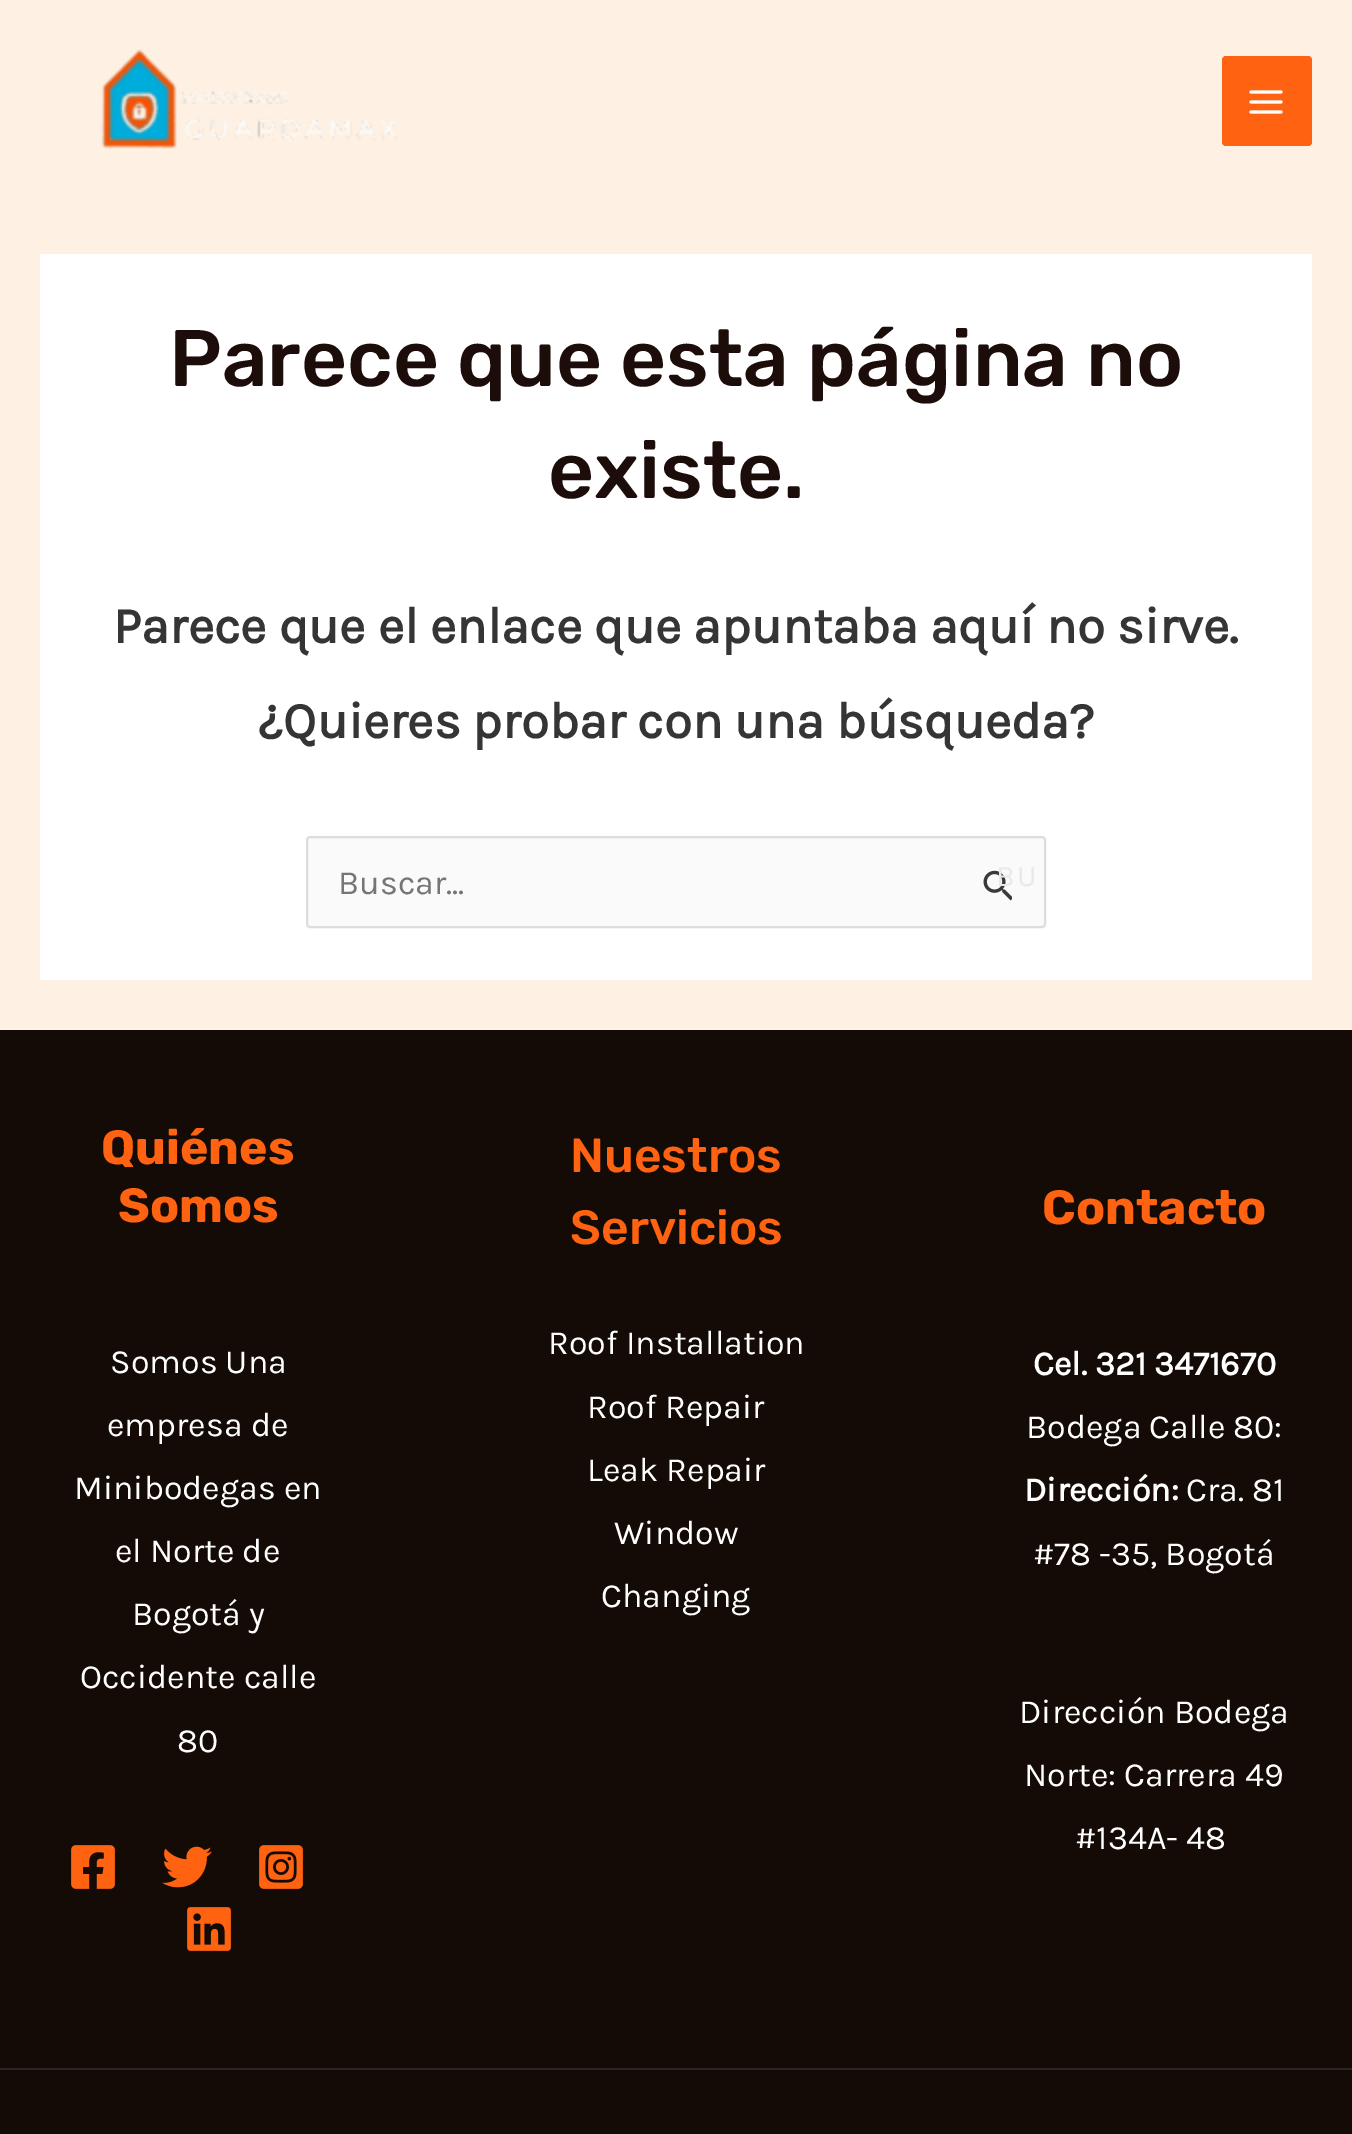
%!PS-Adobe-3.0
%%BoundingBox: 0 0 1352 2134
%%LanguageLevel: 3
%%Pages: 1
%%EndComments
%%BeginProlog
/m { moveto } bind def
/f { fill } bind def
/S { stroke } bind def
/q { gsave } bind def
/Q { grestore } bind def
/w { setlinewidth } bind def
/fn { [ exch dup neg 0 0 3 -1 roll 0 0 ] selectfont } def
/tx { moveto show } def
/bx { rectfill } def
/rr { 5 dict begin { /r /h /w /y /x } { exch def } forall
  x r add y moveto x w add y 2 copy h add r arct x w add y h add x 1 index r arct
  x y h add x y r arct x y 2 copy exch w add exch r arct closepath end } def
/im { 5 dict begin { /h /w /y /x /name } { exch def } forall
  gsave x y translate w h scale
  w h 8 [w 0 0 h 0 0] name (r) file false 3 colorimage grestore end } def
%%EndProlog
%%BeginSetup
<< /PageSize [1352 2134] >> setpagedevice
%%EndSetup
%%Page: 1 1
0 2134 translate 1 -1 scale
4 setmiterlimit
0.996 0.945 0.894 setrgbcolor
0 0 1352 2134 bx
(image0.raw) 101 49 297 100 im
1 0.384 0.063 setrgbcolor
1222 56 90 90 4 rr f
(image1.raw) 1249 90 34 24 im
1 setgray
40 254 1272 726 bx
/Rubik-Medium 80 fn
0.11 0.051 0.039 setrgbcolor
(Parece que esta página no) 169 386 tx
(existe.) 548 498 tx
/Karla-Bold 51 fn
0.208 setgray
(Parece que el enlace que apuntaba aquí no sirve.) 113 643 tx
(¿Quieres probar con una búsqueda?) 258 738 tx
0.98 setgray
307 837 738 90 3 rr q f Q
0.867 setgray
2 w
S
/Karla-Regular 34 fn
0.459 setgray
(Buscar...) 338 894 tx
(image2.raw) 983 870 29 31 im
/Karla-Regular 30 fn
0.914 setgray
996 886 m 2 0 (BU) ashow
0.078 0.043 0.024 setrgbcolor
0 1030 1352 1038 bx
/Rubik-Bold 48 fn
1 0.384 0.063 setrgbcolor
(Quiénes) 101 1164 tx
(Somos) 118 1222 tx
/Karla-Regular 34 fn
1 setgray
(Somos Una) 110 1373 tx
(empresa de) 107 1436 tx
(Minibodegas en) 74 1499 tx
(el Norte de) 115 1562 tx
(Bogotá y) 132 1625 tx
(Occidente calle) 80 1688 tx
(80) 177 1752 tx
(image3.raw) 71 1845 44 44 im
(image4.raw) 162 1846 50 42 im
(image5.raw) 259 1845 44 44 im
(image6.raw) 187 1907 44 44 im
/Rubik-Medium 48 fn
1 0.384 0.063 setrgbcolor
(Nuestros) 570 1172 tx
(Servicios) 570 1244 tx
/Karla-Regular 34 fn
1 setgray
(Roof Installation) 548 1354 tx
(Roof Repair) 587 1418 tx
(Leak Repair) 587 1481 tx
(Window) 614 1544 tx
(Changing) 601 1607 tx
/Rubik-Bold 48 fn
1 0.384 0.063 setrgbcolor
(Contacto) 1042 1224 tx
/Karla-Bold 34 fn
1 setgray
(Cel. 321 3471670) 1033 1375 tx
/Karla-Regular 34 fn
(Bodega Calle 80:) 1026 1438 tx
/Karla-Bold 34 fn
(Dirección:) 1024 1501 tx
/Karla-Regular 34 fn
(Cra. 81) 1186 1501 tx
(#78 -35, Bogotá) 1033 1565 tx
(Dirección Bodega) 1019 1723 tx
(Norte: Carrera 49) 1024 1786 tx
(#134A- 48) 1075 1849 tx
0.078 0.043 0.024 setrgbcolor
0 2070 1352 64 bx
0.173 0.141 0.125 setrgbcolor
0 2068 1352 2 bx
showpage
%%EOF
